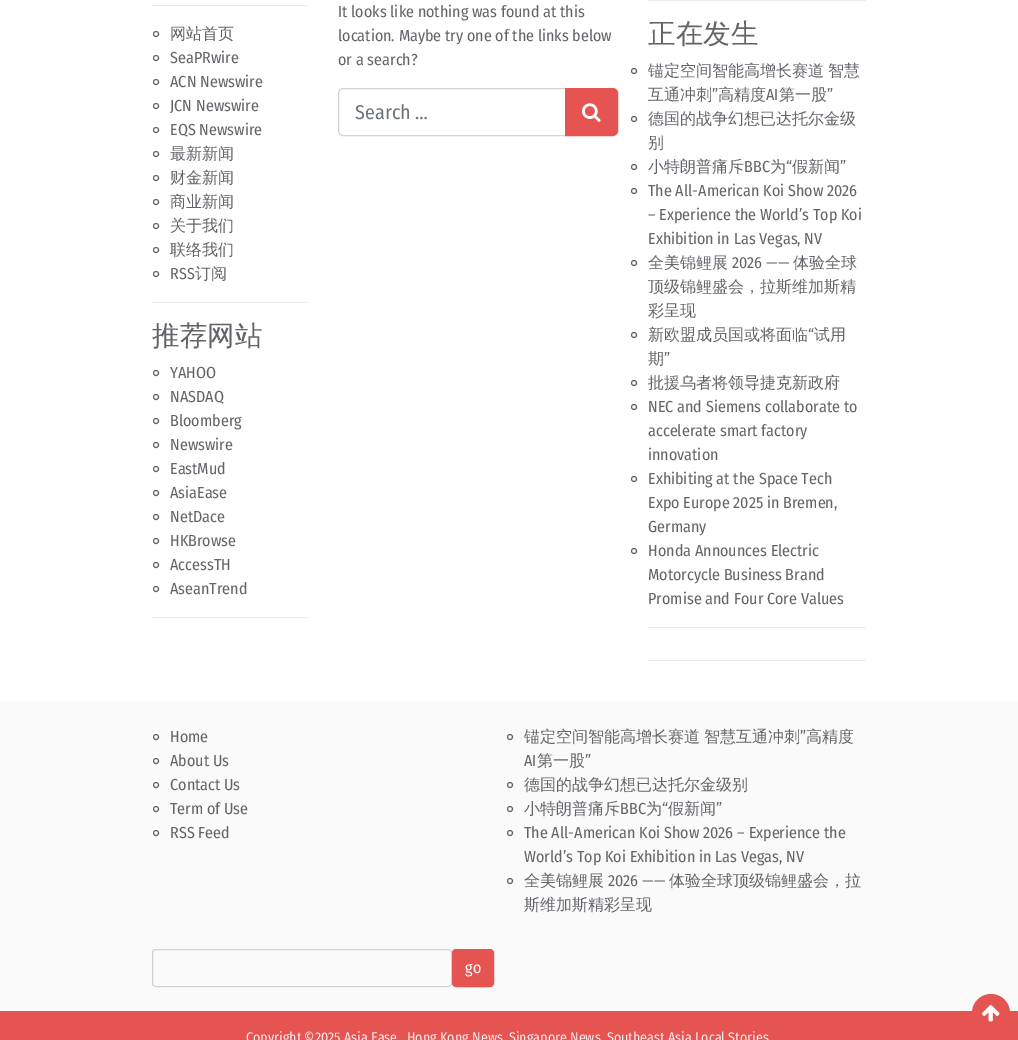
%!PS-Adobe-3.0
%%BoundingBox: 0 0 1018 1040
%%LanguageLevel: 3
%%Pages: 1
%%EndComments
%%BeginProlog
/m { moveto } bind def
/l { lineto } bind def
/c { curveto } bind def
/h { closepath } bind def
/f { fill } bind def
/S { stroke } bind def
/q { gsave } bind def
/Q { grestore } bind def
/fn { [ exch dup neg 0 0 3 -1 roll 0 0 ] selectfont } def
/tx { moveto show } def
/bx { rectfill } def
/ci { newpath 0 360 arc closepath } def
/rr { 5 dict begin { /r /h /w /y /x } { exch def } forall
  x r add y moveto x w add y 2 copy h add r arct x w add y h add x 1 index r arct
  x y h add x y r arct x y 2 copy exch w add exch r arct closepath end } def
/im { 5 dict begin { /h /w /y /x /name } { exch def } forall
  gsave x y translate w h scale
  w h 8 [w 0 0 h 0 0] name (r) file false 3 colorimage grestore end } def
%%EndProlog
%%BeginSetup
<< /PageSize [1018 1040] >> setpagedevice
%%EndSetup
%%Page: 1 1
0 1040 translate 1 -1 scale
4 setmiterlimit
1 setgray
0 0 1018 1040 bx
0.914 0.925 0.937 setrgbcolor
152 5 156 1 bx
152 302 156 1 bx
0.388 0.388 0.412 setrgbcolor
156 34 2.5 ci S
/WenQuanYiZenHei-Medium 16 fn
(网站首页) 170 39 tx
156 58 2.5 ci S
/FiraSansCondensed-Regular 16 fn
(SeaPRwire) 170 63 tx
156 82 2.5 ci S
(ACN Newswire) 170 87 tx
156 106 2.5 ci S
(JCN Newswire) 170 111 tx
156 130 2.5 ci S
(EQS Newswire) 170 135 tx
156 154 2.5 ci S
/WenQuanYiZenHei-Medium 16 fn
(最新新闻) 170 159 tx
156 178 2.5 ci S
(财金新闻) 170 183 tx
156 202 2.5 ci S
(商业新闻) 170 207 tx
156 226 2.5 ci S
(关于我们) 170 231 tx
156 250 2.5 ci S
(联络我们) 170 255 tx
156 274 2.5 ci S
/FiraSansCondensed-Regular 16 fn
(RSS) 170 279 tx
/WenQuanYiZenHei-Medium 16 fn
(订阅) 195 279 tx
0.914 0.925 0.937 setrgbcolor
152 617 156 1 bx
/WenQuanYiZenHei-Medium 27.5 fn
0.388 0.388 0.412 setrgbcolor
(推荐网站) 152 345 tx
156 373 2.5 ci S
/FiraSansCondensed-Regular 16 fn
(YAHOO) 170 378 tx
156 397 2.5 ci S
(NASDAQ) 170 402 tx
156 421 2.5 ci S
(Bloomberg) 170 426 tx
156 445 2.5 ci S
(Newswire) 170 450 tx
156 469 2.5 ci S
(EastMud) 170 474 tx
156 493 2.5 ci S
(AsiaEase) 170 498 tx
156 517 2.5 ci S
(NetDace) 170 522 tx
156 541 2.5 ci S
(HKBrowse) 170 546 tx
156 565 2.5 ci S
(AccessTH) 170 570 tx
156 589 2.5 ci S
(AseanTrend) 170 594 tx
(It looks like nothing was found at this) 338 17 tx
(location. Maybe try one of the links below) 338 41 tx
(or a search?) 338 65 tx
0.808 0.831 0.855 setrgbcolor
343 88.5 m 565.5 88.5 l 565.5 135.5 l 343 135.5 l 340.5 135.5 338.5 133.5 338.5 131 c 338.5 93 l 338.5 90.5 340.5 88.5 343 88.5 c h S
/FiraSansCondensed-Regular 20 fn
0.424 0.459 0.49 setrgbcolor
(Search …) 355 119 tx
0.898 0.329 0.318 setrgbcolor
565.5 88.5 m 613 88.5 l 615.5 88.5 617.5 90.5 617.5 93 c 617.5 131 l 617.5 133.5 615.5 135.5 613 135.5 c 565.5 135.5 l h q f Q
S
(image0.raw) 582 103 19 19 im
0.914 0.925 0.937 setrgbcolor
648 0 218 1 bx
648 627 218 1 bx
/WenQuanYiZenHei-Medium 27.5 fn
0.388 0.388 0.412 setrgbcolor
(正在发生) 648 43 tx
634 71 2.5 ci S
/WenQuanYiZenHei-Medium 16 fn
648 76 m -1 0 32 (锚定空间智能高增长赛道 智慧) widthshow
(互通冲刺) 648 100 tx
/FiraSansCondensed-Regular 16 fn
(”) 712 100 tx
/WenQuanYiZenHei-Medium 16 fn
(高精度) 718 100 tx
/FiraSansCondensed-Regular 16 fn
(AI) 766 100 tx
/WenQuanYiZenHei-Medium 16 fn
(第一股) 779 100 tx
/FiraSansCondensed-Regular 16 fn
(”) 827 100 tx
634 119 2.5 ci S
/WenQuanYiZenHei-Medium 16 fn
(德国的战争幻想已达托尔金级) 648 124 tx
(别) 648 148 tx
(小特朗普痛斥) 648 172 tx
/FiraSansCondensed-Regular 16 fn
(BBC) 744 172 tx
/WenQuanYiZenHei-Medium 16 fn
(为) 770 172 tx
/FiraSansCondensed-Regular 16 fn
(“) 786 172 tx
/WenQuanYiZenHei-Medium 16 fn
(假新闻) 792 172 tx
/FiraSansCondensed-Regular 16 fn
(”) 840 172 tx
634 167 2.5 ci S
634 191 2.5 ci S
(The All-American Koi Show 2026) 648 196 tx
(– Experience the World’s Top Koi) 648 220 tx
(Exhibition in Las Vegas, NV) 648 244 tx
634 263 2.5 ci S
/WenQuanYiZenHei-Medium 16 fn
(全美锦鲤展) 648 268 tx
/FiraSansCondensed-Regular 16 fn
(2026 ——) 732 268 tx
/WenQuanYiZenHei-Medium 16 fn
(体验全球) 793 268 tx
(顶级锦鲤盛会，拉斯维加斯精) 648 292 tx
(彩呈现) 648 316 tx
(新欧盟成员国或将面临) 648 340 tx
/FiraSansCondensed-Regular 16 fn
(“) 808 340 tx
/WenQuanYiZenHei-Medium 16 fn
(试用) 814 340 tx
634 335 2.5 ci S
(期) 648 364 tx
/FiraSansCondensed-Regular 16 fn
(”) 664 364 tx
634 383 2.5 ci S
/WenQuanYiZenHei-Medium 16 fn
(批援乌者将领导捷克新政府) 648 388 tx
634 407 2.5 ci S
/FiraSansCondensed-Regular 16 fn
(NEC and Siemens collaborate to) 648 412 tx
(accelerate smart factory) 648 436 tx
(innovation) 648 460 tx
634 479 2.5 ci S
(Exhibiting at the Space Tech) 648 484 tx
(Expo Europe 2025 in Bremen,) 648 508 tx
(Germany) 648 532 tx
634 551 2.5 ci S
(Honda Announces Electric) 648 556 tx
(Motorcycle Business Brand) 648 580 tx
(Promise and Four Core Values) 648 604 tx
0.914 0.925 0.937 setrgbcolor
648 660 218 1 bx
0.98 setgray
0 701 1018 310 bx
0.388 0.388 0.412 setrgbcolor
156 737 2.5 ci S
(Home) 170 742 tx
156 761 2.5 ci S
(About Us) 170 766 tx
156 785 2.5 ci S
(Contact Us) 170 790 tx
156 809 2.5 ci S
(Term of Use) 170 814 tx
156 833 2.5 ci S
(RSS Feed) 170 838 tx
/WenQuanYiZenHei-Medium 16 fn
524 742 m -1 0 32 (锚定空间智能高增长赛道 智慧互通冲刺) widthshow
/FiraSansCondensed-Regular 16 fn
(”) 800 742 tx
/WenQuanYiZenHei-Medium 16 fn
(高精度) 806 742 tx
510 737 2.5 ci S
/FiraSansCondensed-Regular 16 fn
(AI) 524 766 tx
/WenQuanYiZenHei-Medium 16 fn
(第一股) 537 766 tx
/FiraSansCondensed-Regular 16 fn
(”) 585 766 tx
510 785 2.5 ci S
/WenQuanYiZenHei-Medium 16 fn
(德国的战争幻想已达托尔金级别) 524 790 tx
(小特朗普痛斥) 524 814 tx
/FiraSansCondensed-Regular 16 fn
(BBC) 620 814 tx
/WenQuanYiZenHei-Medium 16 fn
(为) 646 814 tx
/FiraSansCondensed-Regular 16 fn
(“) 662 814 tx
/WenQuanYiZenHei-Medium 16 fn
(假新闻) 668 814 tx
/FiraSansCondensed-Regular 16 fn
(”) 716 814 tx
510 809 2.5 ci S
510 833 2.5 ci S
(The All-American Koi Show 2026 – Experience the) 524 838 tx
(World’s Top Koi Exhibition in Las Vegas, NV) 524 862 tx
510 881 2.5 ci S
/WenQuanYiZenHei-Medium 16 fn
(全美锦鲤展) 524 886 tx
/FiraSansCondensed-Regular 16 fn
(2026 ——) 608 886 tx
/WenQuanYiZenHei-Medium 16 fn
(体验全球顶级锦鲤盛会，拉) 669 886 tx
(斯维加斯精彩呈现) 524 910 tx
0.808 0.831 0.855 setrgbcolor
152.5 949.5 299 37 3.5 rr S
0.898 0.329 0.318 setrgbcolor
452.5 949.5 41 37 3.5 rr q f Q
S
/FiraSansCondensed-Regular 16 fn
1 setgray
(go) 465 973 tx
0.898 0.329 0.318 setrgbcolor
0 1011 1018 29 bx
/FiraSansCondensed-Regular 14 fn
0.988 0.933 0.933 setrgbcolor
(Copyright ©2025 Asia Ease) 246 1042 tx
(Hong Kong News, Singapore News, Southeast Asia Local Stories) 407 1042 tx
0.898 0.329 0.318 setrgbcolor
991 1013 19 ci f
(image1.raw) 982 1005 18 17 im
showpage
%%EOF
